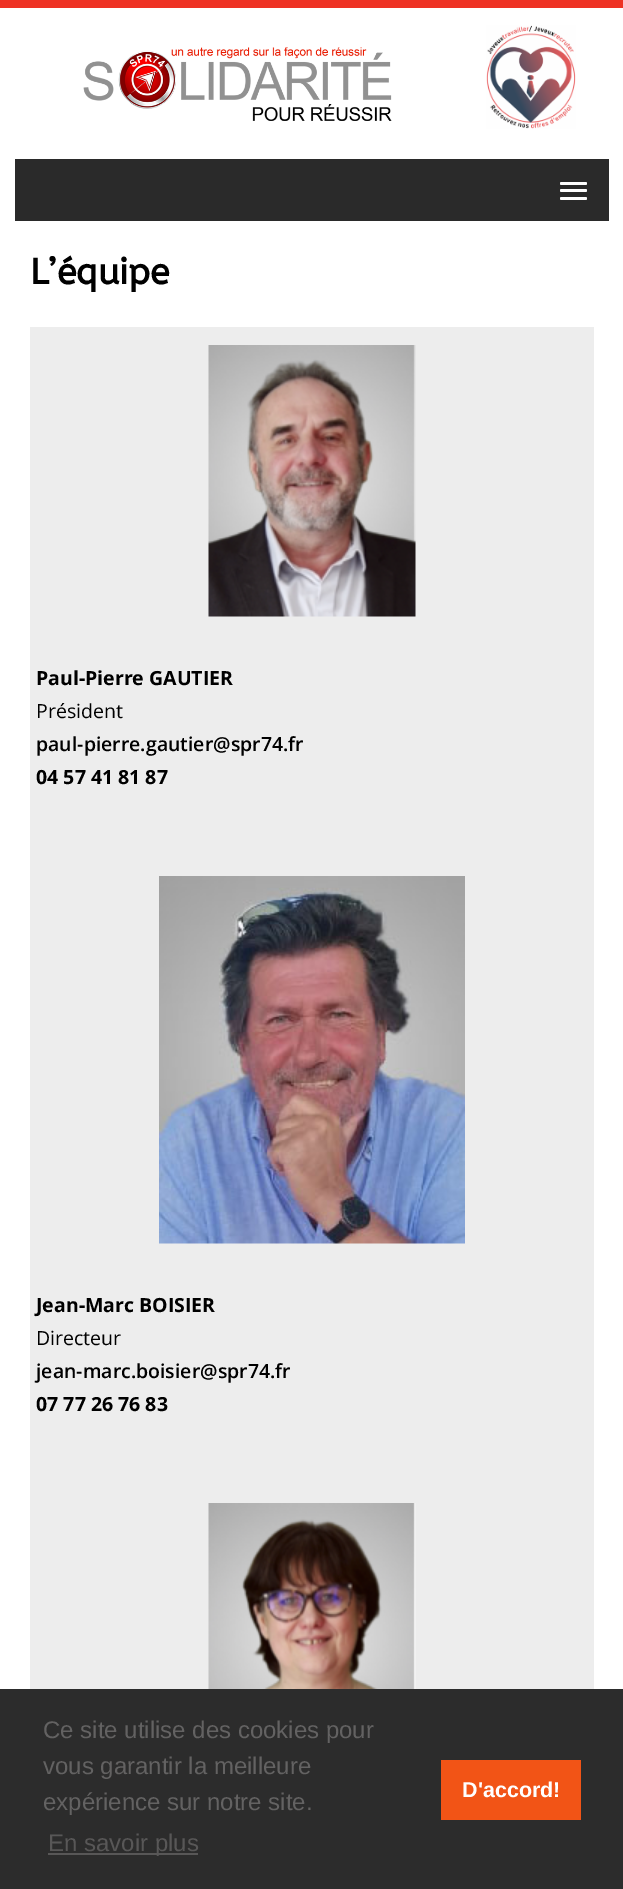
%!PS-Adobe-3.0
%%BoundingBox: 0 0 623 1889
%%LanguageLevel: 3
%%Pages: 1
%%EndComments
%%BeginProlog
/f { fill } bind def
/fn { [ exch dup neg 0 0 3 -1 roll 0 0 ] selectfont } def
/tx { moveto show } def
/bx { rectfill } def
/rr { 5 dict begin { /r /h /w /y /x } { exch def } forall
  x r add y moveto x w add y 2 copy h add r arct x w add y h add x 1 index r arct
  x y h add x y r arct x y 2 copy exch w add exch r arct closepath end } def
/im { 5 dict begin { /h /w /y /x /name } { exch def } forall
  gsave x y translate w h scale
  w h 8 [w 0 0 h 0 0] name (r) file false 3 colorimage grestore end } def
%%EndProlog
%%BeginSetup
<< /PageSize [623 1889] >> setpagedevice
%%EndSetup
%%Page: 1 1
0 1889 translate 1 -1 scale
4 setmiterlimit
1 setgray
0 0 623 1889 bx
0.933 0.196 0.141 setrgbcolor
0 0 623 8 bx
(image0.raw) 83 40 403 86 im
(image1.raw) 486 25 90 104 im
0.165 setgray
15 159 594 62 bx
1 setgray
560 182 27 3 1.5 rr f
560 189 27 3 1.5 rr f
560 197 27 3 1.5 rr f
/ABeeZee-Bold 36 fn
0 setgray
(L’équipe) 30 284 tx
0.929 setgray
30 327 564 1362 bx
(image2.raw) 208 345 208 272 im
/OpenSans-Bold 19.5 fn
0 setgray
(Paul-Pierre GAUTIER) 36 685 tx
/OpenSans-Regular 19.5 fn
(Président) 36 718 tx
/OpenSans-SemiBold 19.5 fn
(paul-pierre.gautier@spr74.fr) 36 751 tx
/OpenSans-Bold 19.5 fn
(04 57 41 81 87) 36 784 tx
(image3.raw) 159 876 306 368 im
(Jean-Marc BOISIER) 36 1312 tx
/OpenSans-Regular 19.5 fn
(Directeur) 36 1345 tx
/OpenSans-SemiBold 19.5 fn
(jean-marc.boisier@spr74.fr) 36 1378 tx
/OpenSans-Bold 19.5 fn
(07 77 26 76 83) 36 1411 tx
(image4.raw) 208 1503 208 186 im
0.173 setgray
0 1689 623 200 bx
/LiberationSans-Regular 24 fn
0.388 0.384 0.384 setrgbcolor
(Ce site utilise des cookies pour) 43 1738 tx
(vous garantir la meilleure) 43 1774 tx
(expérience sur notre site.) 43 1810 tx
0.345 0.341 0.341 setrgbcolor
48 1853 150 2 bx
(En savoir plus) 48 1851 tx
0.949 0.329 0.086 setrgbcolor
441 1760 140 60 bx
/LiberationSans-Bold 21.5 fn
1 setgray
(D'accord!) 462 1797 tx
showpage
%%EOF
